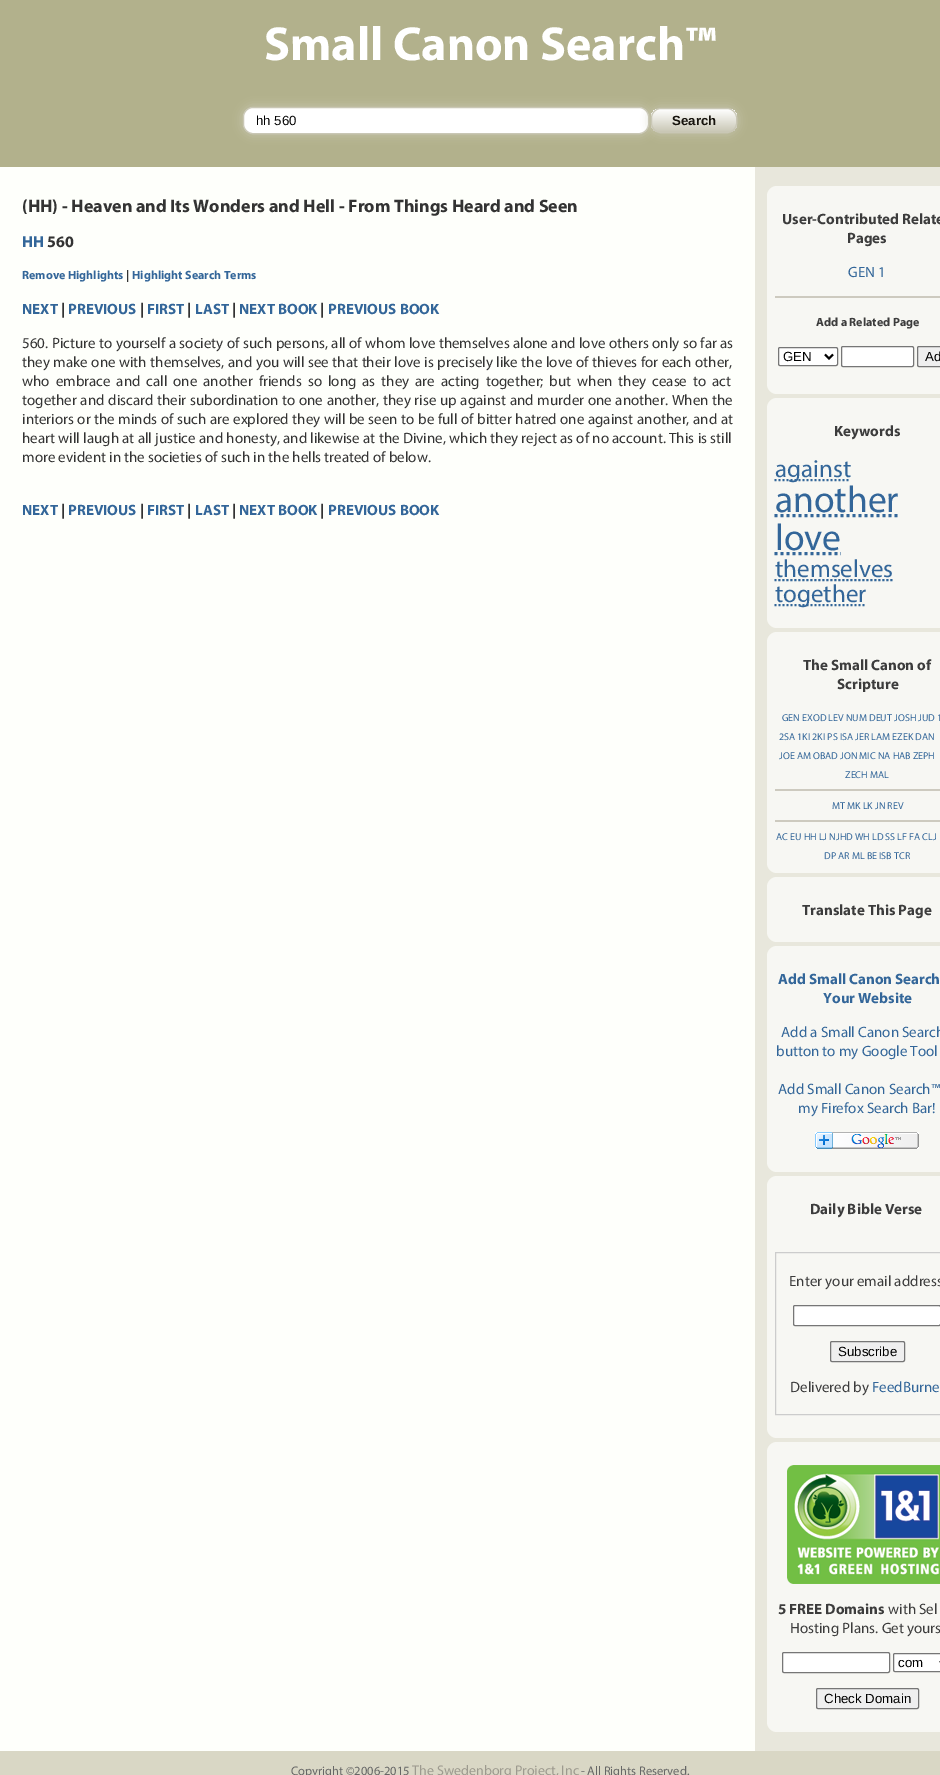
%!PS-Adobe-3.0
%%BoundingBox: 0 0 940 1775
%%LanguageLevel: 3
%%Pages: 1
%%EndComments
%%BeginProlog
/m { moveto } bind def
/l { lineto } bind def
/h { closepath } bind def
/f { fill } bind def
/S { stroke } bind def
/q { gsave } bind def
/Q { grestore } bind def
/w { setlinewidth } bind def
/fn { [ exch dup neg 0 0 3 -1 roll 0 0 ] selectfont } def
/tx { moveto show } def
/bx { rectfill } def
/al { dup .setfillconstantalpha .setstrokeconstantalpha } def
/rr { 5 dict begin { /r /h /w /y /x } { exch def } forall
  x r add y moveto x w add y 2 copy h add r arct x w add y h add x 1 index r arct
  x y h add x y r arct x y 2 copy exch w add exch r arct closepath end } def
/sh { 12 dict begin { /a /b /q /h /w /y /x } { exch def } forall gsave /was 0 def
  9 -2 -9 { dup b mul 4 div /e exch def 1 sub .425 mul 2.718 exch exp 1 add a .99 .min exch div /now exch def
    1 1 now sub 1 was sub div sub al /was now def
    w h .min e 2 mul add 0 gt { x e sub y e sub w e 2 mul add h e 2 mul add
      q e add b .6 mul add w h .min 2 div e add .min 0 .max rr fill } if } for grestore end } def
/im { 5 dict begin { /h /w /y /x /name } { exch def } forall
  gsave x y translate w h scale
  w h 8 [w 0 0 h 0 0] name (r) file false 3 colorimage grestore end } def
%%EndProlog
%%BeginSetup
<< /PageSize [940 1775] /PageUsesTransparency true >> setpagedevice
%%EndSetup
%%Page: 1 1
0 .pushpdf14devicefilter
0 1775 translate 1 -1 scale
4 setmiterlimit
0.698 0.694 0.549 setrgbcolor
0 0 940 1775 bx
/Myriad-Bold 48 fn
1 setgray
(Small Canon Search™) 264 60 tx
0.788 0.78 0.71 setrgbcolor
243 107 406 27 10 5 1 sh
1 setgray
243.5 107.5 405 26 9.5 rr q f Q
0.788 0.78 0.71 setrgbcolor
S
/LiberationSans-Regular 13.25 fn
0 setgray
(hh 560) 256 125 tx
0.788 0.78 0.71 setrgbcolor
651 108 86 25 10 5 1 sh
q
651 108 86 25 10 rr clip newpath
q 651 109 m 737 109 l 737 132 l 651 132 l h clip newpath
<< /ShadingType 2 /ColorSpace /DeviceRGB /Coords [652 109 652 132] /Extend [true true] /Function << /FunctionType 2 /Domain [0 1] /C0 [1 1 1] /C1 [0.788 0.78 0.71] /N 1 >> >> shfill Q
Q
651.5 108.5 85 24 9.5 rr S
/LiberationSans-Bold 13.25 fn
0.086 0.075 0.051 setrgbcolor
(Search) 672 125 tx
0.996 1 0.984 setrgbcolor
0 167 755 1584 bx
/Myriad-Bold 18 fn
0.2 setgray
(\(HH\) - Heaven and Its Wonders and Hell - From Things Heard and Seen) 22 212 tx
/Myriad-Bold 16 fn
0.2 0.4 0.6 setrgbcolor
(HH) 22 247 tx
0.2 setgray
(560) 47 247 tx
/Myriad-Bold 12 fn
0.2 0.4 0.6 setrgbcolor
(Remove Highlights) 22 279 tx
0.2 setgray
(|) 126 279 tx
0.2 0.4 0.6 setrgbcolor
(Highlight Search Terms) 132 279 tx
/Myriad-Bold 15 fn
(NEXT) 22 314 tx
0.2 setgray
(|) 61 314 tx
0.2 0.4 0.6 setrgbcolor
(PREVIOUS) 68 314 tx
0.2 setgray
(|) 140 314 tx
0.2 0.4 0.6 setrgbcolor
(FIRST) 147 314 tx
0.2 setgray
(|) 187 314 tx
0.2 0.4 0.6 setrgbcolor
(LAST) 195 314 tx
0.2 setgray
(|) 232 314 tx
0.2 0.4 0.6 setrgbcolor
(NEXT BOOK) 239 314 tx
0.2 setgray
(|) 320 314 tx
0.2 0.4 0.6 setrgbcolor
(PREVIOUS BOOK) 328 314 tx
/Myriad-Regular 15 fn
0.2 setgray
22 348 m 0.25 0 32 (560. Picture to yourself a society of such persons, all of whom love themselves alone and love others only so far as) widthshow
22 367 m 0.4 0 32 (they make one with themselves, and you will see that their love is precisely like the love of thieves for each other,) widthshow
22 386 m 2.75 0 32 (who embrace and call one another friends so long as they are acting together; but when they cease to act) widthshow
22 405 m 0.5 0 32 (together and discard their subordination to one another, they rise up against and murder one another. When the) widthshow
22 424 m 0.4 0 32 (interiors or the minds of such are explored they will be seen to be full of bitter hatred one against another, and at) widthshow
22 443 m 0.1 0 32 (heart will laugh at all justice and honesty, and likewise at the Divine, which they reject as of no account. This is still) widthshow
(more evident in the societies of such in the hells treated of below.) 22 462 tx
/Myriad-Bold 15 fn
0.2 0.4 0.6 setrgbcolor
(NEXT) 22 515 tx
0.2 setgray
(|) 61 515 tx
0.2 0.4 0.6 setrgbcolor
(PREVIOUS) 68 515 tx
0.2 setgray
(|) 140 515 tx
0.2 0.4 0.6 setrgbcolor
(FIRST) 147 515 tx
0.2 setgray
(|) 187 515 tx
0.2 0.4 0.6 setrgbcolor
(LAST) 195 515 tx
0.2 setgray
(|) 232 515 tx
0.2 0.4 0.6 setrgbcolor
(NEXT BOOK) 239 515 tx
0.2 setgray
(|) 320 515 tx
0.2 0.4 0.6 setrgbcolor
(PREVIOUS BOOK) 328 515 tx
0.91 0.906 0.863 setrgbcolor
755 167 185 1584 bx
0.969 0.969 0.953 setrgbcolor
767 186 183 208 10 rr f
0.235 setgray
(User-Contributed Relate) 782 224 tx
(Pages) 847 243 tx
/Myriad-Regular 15 fn
0.2 0.4 0.6 setrgbcolor
(GEN 1) 848 277 tx
0.804 0.792 0.749 setrgbcolor
775 296 165 2 bx
/Myriad-Bold 12 fn
0.235 setgray
(Add a Related Page) 816 326 tx
1 setgray
778.5 347.5 59 18 1.5 rr q f Q
0.463 setgray
S
0 setgray
2 w
825 354.5 m 829 358.5 l 833 354.5 l S
/LiberationSans-Regular 13.25 fn
(GEN) 783 361 tx
1 setgray
841.5 346.5 72 20 1.5 rr q f Q
0.463 setgray
1 w
S
0.937 setgray
917.5 346.5 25 20 1.5 rr q f Q
0.463 setgray
S
0 setgray
(Ad) 925 361 tx
0.969 0.969 0.953 setrgbcolor
767 398 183 230 10 rr f
/Myriad-Bold 15 fn
0.235 setgray
(Keywords) 834 436 tx
0.2 0.4 0.6 setrgbcolor
2 w
[2 2] 0 setdash
774.5 480 m 850.5 480 l S
/Myriad-Regular 25 fn
(against) 775 477 tx
/Myriad-Regular 37.5 fn
(another) 775 512 tx
3 w
[3 3] 0 setdash
774.5 515.5 m 898.5 515.5 l S
(love) 775 550 tx
774.5 553.5 m 841 553.5 l S
/Myriad-Regular 25 fn
(themselves) 775 577 tx
2 w
[2 2] 0 setdash
774.5 580 m 893 580 l S
774.5 605 m 866 605 l S
(together) 775 602 tx
0.969 0.969 0.953 setrgbcolor
767 632 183 241 10 rr f
/Myriad-Bold 15 fn
0.235 setgray
(The Small Canon of) 803 670 tx
(Scripture) 837 689 tx
/Myriad-Regular 10 fn
0.2 0.4 0.6 setrgbcolor
(GEN EXOD LEV NUM DEUT JOSH JUD 1) 782 721 tx
(2SA 1KI 2KI PS ISA JER LAM EZEK DAN) 779 740 tx
(JOE AM OBAD JON MIC NA HAB ZEPH) 779 759 tx
(ZECH MAL) 845 778 tx
0.804 0.792 0.749 setrgbcolor
775 789 165 2 bx
0.2 0.4 0.6 setrgbcolor
(MT MK LK JN REV) 832 809 tx
0.804 0.792 0.749 setrgbcolor
775 820 165 2 bx
0.2 0.4 0.6 setrgbcolor
(AC EU HH LJ NJHD WH LD SS LF FA CLJ) 776 840 tx
(DP AR ML BE ISB TCR) 824 859 tx
0.969 0.969 0.953 setrgbcolor
767 877 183 65 10 rr f
/Myriad-Bold 15 fn
0.235 setgray
(Translate This Page) 802 915 tx
0.969 0.969 0.953 setrgbcolor
767 946 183 226 10 rr f
0.2 0.4 0.6 setrgbcolor
(Add Small Canon Search) 778 984 tx
(Your Website) 823 1003 tx
/Myriad-Regular 15 fn
(Add a Small Canon Search) 781 1037 tx
(button to my Google Tool) 776 1056 tx
(Add Small Canon Search™) 778 1094 tx
(my Firefox Search Bar!) 798 1113 tx
(image0.raw) 815 1132 104 17 im
0.969 0.969 0.953 setrgbcolor
767 1176 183 262 10 rr f
/Myriad-Bold 15 fn
0.235 setgray
(Daily Bible Verse) 810 1214 tx
0.8 setgray
1 w
[] 0 setdash
775.5 1252.5 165 162 rectstroke
/Myriad-Regular 15 fn
0.235 setgray
(Enter your email address) 789 1286 tx
1 setgray
793.5 1305.5 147 20 1.5 rr q f Q
0.463 setgray
S
0.937 setgray
830.5 1341.5 74 20 1.5 rr q f Q
0.463 setgray
S
/LiberationSans-Regular 13.25 fn
0 setgray
(Subscribe) 838 1356 tx
/Myriad-Regular 15 fn
0.235 setgray
(Delivered by) 790 1392 tx
0.2 0.4 0.6 setrgbcolor
(FeedBurne) 872 1392 tx
0.969 0.969 0.953 setrgbcolor
767 1442 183 290 10 rr f
(image1.raw) 787 1465 153 119 im
/Myriad-Bold 15 fn
0.235 setgray
(5 FREE Domains) 778 1614 tx
/Myriad-Regular 15 fn
(with Sel) 888 1614 tx
(Hosting Plans. Get yours) 790 1633 tx
1 setgray
782.5 1652.5 107 20 1.5 rr q f Q
0.463 setgray
S
1 setgray
893.5 1653.5 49 18 1.5 rr q f Q
0.463 setgray
S
0 setgray
2 w
940 1661 m 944 1665 l 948 1661 l S
/LiberationSans-Regular 13.25 fn
(com) 898 1667 tx
0.937 setgray
816.5 1688.5 102 20 1.5 rr q f Q
0.463 setgray
1 w
S
0 setgray
(Check Domain) 824 1703 tx
0.851 0.843 0.773 setrgbcolor
0 1751 940 24 bx
/Myriad-Regular 12.5 fn
0.4 setgray
(Copyright ©2006-2015) 291 1775 tx
/Myriad-Regular 14 fn
0.616 0.604 0.561 setrgbcolor
(The Swedenborg Project, Inc) 412 1775 tx
/Myriad-Regular 12.5 fn
0.4 setgray
(- All Rights Reserved.) 581 1775 tx
.poppdf14devicefilter showpage
%%EOF
